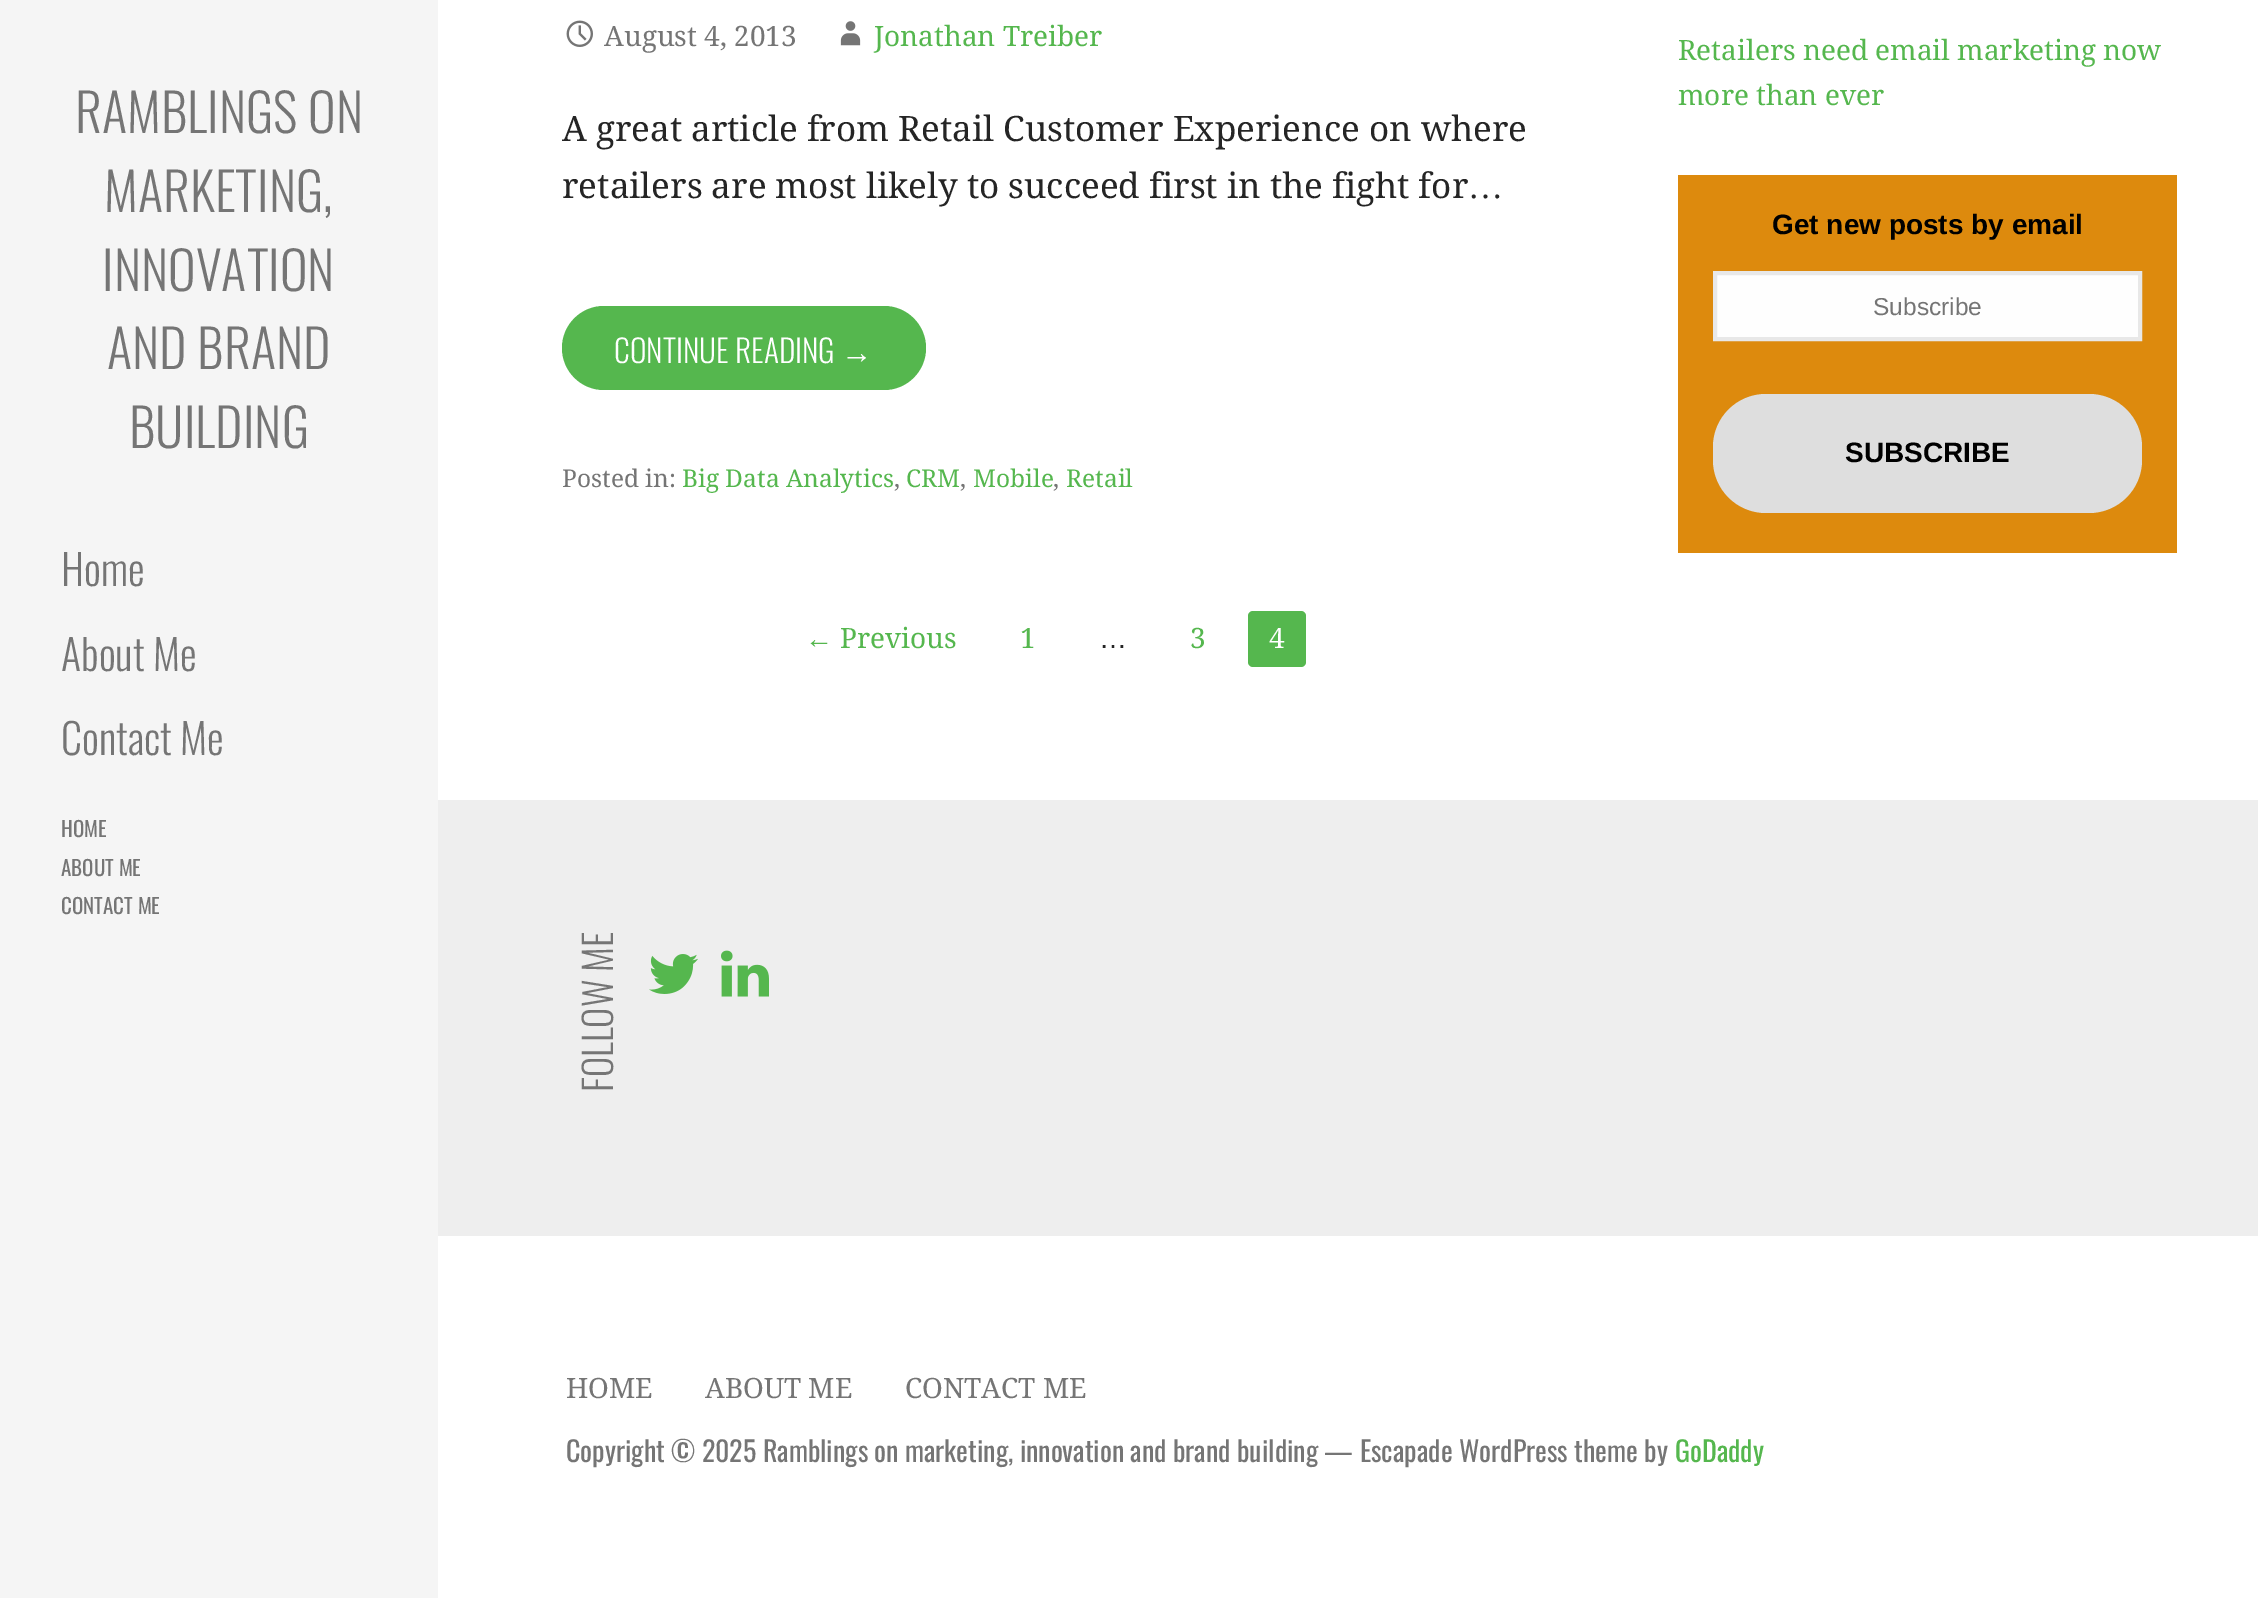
%!PS-Adobe-3.0
%%BoundingBox: 0 0 2258 1598
%%LanguageLevel: 3
%%Pages: 1
%%EndComments
%%BeginProlog
/m { moveto } bind def
/l { lineto } bind def
/h { closepath } bind def
/f { fill } bind def
/S { stroke } bind def
/q { gsave } bind def
/Q { grestore } bind def
/w { setlinewidth } bind def
/fn { [ exch dup neg 0 0 3 -1 roll 0 0 ] selectfont } def
/tx { moveto show } def
/bx { rectfill } def
/rr { 5 dict begin { /r /h /w /y /x } { exch def } forall
  x r add y moveto x w add y 2 copy h add r arct x w add y h add x 1 index r arct
  x y h add x y r arct x y 2 copy exch w add exch r arct closepath end } def
/im { 5 dict begin { /h /w /y /x /name } { exch def } forall
  gsave x y translate w h scale
  w h 8 [w 0 0 h 0 0] name (r) file false 3 colorimage grestore end } def
%%EndProlog
%%BeginSetup
<< /PageSize [2258 1598] >> setpagedevice
%%EndSetup
%%Page: 1 1
0 1598 translate 1 -1 scale
4 setmiterlimit
1 setgray
0 0 2258 1598 bx
0.961 setgray
0 0 438 1598 bx
/Oswald-Light 52.5 fn
0.459 setgray
(RAMBLINGS ON) 75 133 tx
(MARKETING,) 104 212 tx
(INNOVATION) 102 291 tx
(AND BRAND) 107 369 tx
(BUILDING) 129 448 tx
/Oswald-Light 42 fn
(Home) 61 586 tx
(About Me) 61 671 tx
(Contact Me) 61 755 tx
/Oswald-Regular 21 fn
(HOME) 61 837 tx
(ABOUT ME) 61 876 tx
(CONTACT ME) 61 914 tx
(image0.raw) 566 20 27 27 im
/DroidSerif-Regular 28 fn
(August 4, 2013) 604 46 tx
(image1.raw) 840 21 21 25 im
0.333 0.718 0.306 setrgbcolor
(Jonathan Treiber) 874 46 tx
/DroidSerif-Regular 35 fn
0.145 setgray
(A great article from Retail Customer Experience on where) 562 141 tx
(retailers are most likely to succeed first in the fight for) 562 198 tx
/LiberationSerif-Regular 35 fn
(…) 1468 198 tx
0.333 0.718 0.306 setrgbcolor
562 306 364 84 42 rr f
/Oswald-Light 31.5 fn
1 setgray
(CONTINUE READING) 614 363 tx
/LiberationSans-Regular 31.5 fn
(→) 841 363 tx
/DroidSerif-Regular 24.5 fn
0.459 setgray
(Posted in:) 562 487 tx
0.333 0.718 0.306 setrgbcolor
(Big Data Analytics) 682 487 tx
0.459 setgray
(,) 894 487 tx
0.333 0.718 0.306 setrgbcolor
(CRM) 906 487 tx
0.459 setgray
(,) 960 487 tx
0.333 0.718 0.306 setrgbcolor
(Mobile) 973 487 tx
0.459 setgray
(,) 1053 487 tx
0.333 0.718 0.306 setrgbcolor
(Retail) 1066 487 tx
/LiberationSans-Regular 28 fn
(←) 805 648 tx
/DroidSerif-Regular 28 fn
(Previous) 840 648 tx
(1) 1020 648 tx
/LiberationSans-Regular 28 fn
0.145 setgray
(…) 1099 648 tx
/DroidSerif-Regular 28 fn
0.333 0.718 0.306 setrgbcolor
(3) 1190 648 tx
1248 611 58 56 5 rr f
1 setgray
(4) 1269 648 tx
0.333 0.718 0.306 setrgbcolor
(Retailers need email marketing now) 1678 60 tx
(more than ever) 1678 105 tx
0.867 0.541 0.051 setrgbcolor
1678 175 499 378 bx
/LiberationSans-Bold 28 fn
0 setgray
(Get new posts by email) 1772 234 tx
0.996 setgray
1715 273 m 2140 273 l 2140 339 l 1715 339 l h q f Q
0.91 setgray
4 w
S
/LiberationSans-Regular 24.5 fn
0.459 setgray
(Subscribe) 1873 315 tx
0.871 setgray
1713 394 429 119 53 rr f
/LiberationSans-Bold 28 fn
0 setgray
(SUBSCRIBE) 1845 462 tx
0.933 setgray
438 800 1820 436 bx
/Oswald-Light 38.5 fn
0.459 setgray
q 613 1092 translate -90 rotate 0 0 m (FOLLOW ME) show Q
(image2.raw) 649 954 49 40 im
(image3.raw) 721 950 48 47 im
/DroidSerif-Regular 28 fn
(HOME) 566 1398 tx
(ABOUT ME) 705 1398 tx
(CONTACT ME) 905 1398 tx
/Oswald-Regular 28 fn
(Copyright © 2025 Ramblings on marketing, innovation and brand building — Escapade WordPress theme by) 566 1462 tx
0.333 0.718 0.306 setrgbcolor
(GoDaddy) 1675 1462 tx
showpage
%%EOF
